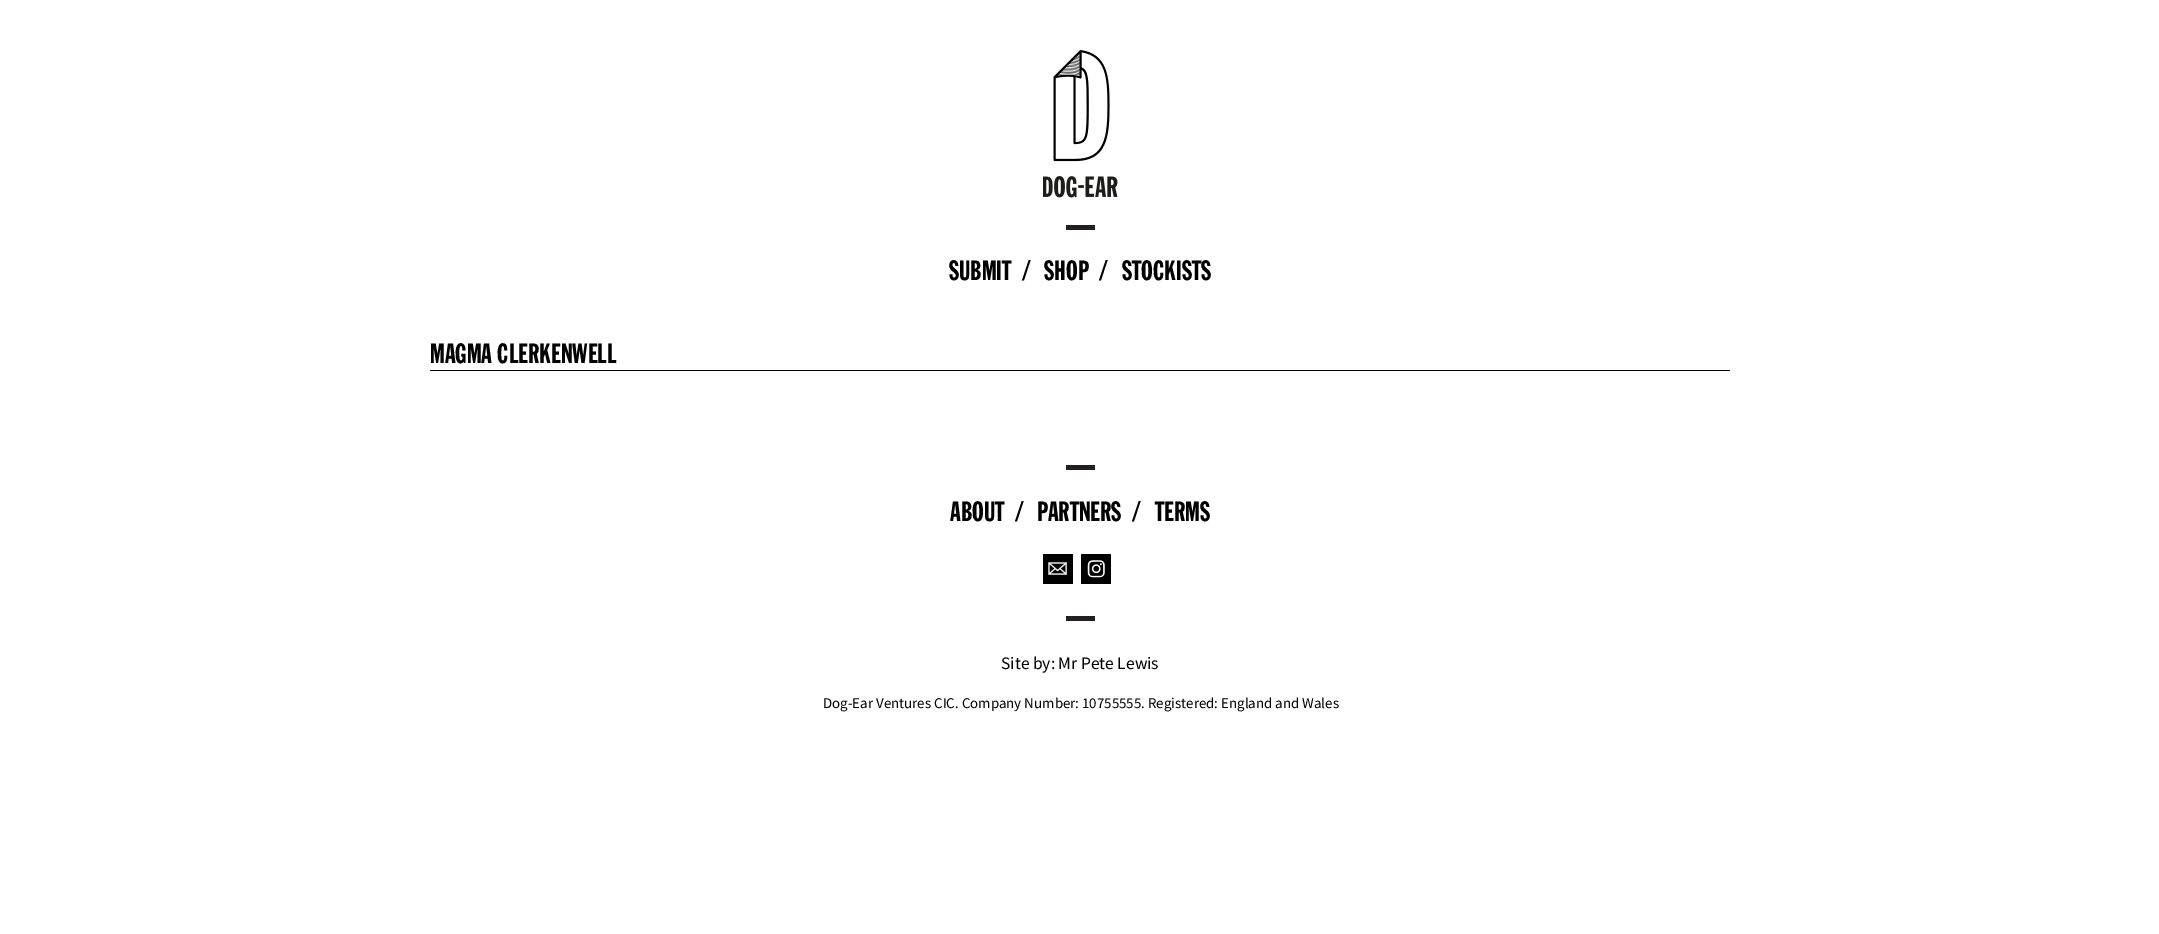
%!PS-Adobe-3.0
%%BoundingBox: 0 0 2159 934
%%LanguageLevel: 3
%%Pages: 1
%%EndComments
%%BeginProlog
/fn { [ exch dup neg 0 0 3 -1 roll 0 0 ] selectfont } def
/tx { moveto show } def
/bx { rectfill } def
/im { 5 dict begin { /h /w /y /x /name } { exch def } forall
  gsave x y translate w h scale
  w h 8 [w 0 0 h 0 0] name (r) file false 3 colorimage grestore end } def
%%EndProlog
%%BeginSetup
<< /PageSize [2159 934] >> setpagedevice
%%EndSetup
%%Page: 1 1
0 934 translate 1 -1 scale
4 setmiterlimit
1 setgray
0 0 2159 934 bx
(image0.raw) 1043 50 75 148 im
0.137 0.122 0.125 setrgbcolor
1066 225 29 5 bx
/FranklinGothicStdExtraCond-Regular 27.5 fn
0 setgray
(SUBMIT) 949 280 tx
(⁄) 1024 280 tx
(SHOP) 1044 280 tx
(⁄) 1101 280 tx
(STOCKISTS) 1122 280 tx
430 370 1300 1 bx
(MAGMA CLERKENWELL) 430 363 tx
0.137 0.122 0.125 setrgbcolor
1066 465 29 5 bx
0 setgray
(ABOUT) 950 521 tx
(⁄) 1017 521 tx
(PARTNERS) 1037 521 tx
(⁄) 1134 521 tx
(TERMS) 1155 521 tx
(image1.raw) 1043 554 30 30 im
(image2.raw) 1081 554 30 30 im
0.137 0.122 0.125 setrgbcolor
1066 616 29 5 bx
/SourceSansPro-Regular 17.5 fn
0 setgray
(Site by: Mr Pete Lewis) 1001 669 tx
/SourceSansPro-Regular 14.9 fn
(Dog-Ear Ventures CIC. Company Number: 10755555. Registered: England and Wales) 823 708 tx
showpage
%%EOF
